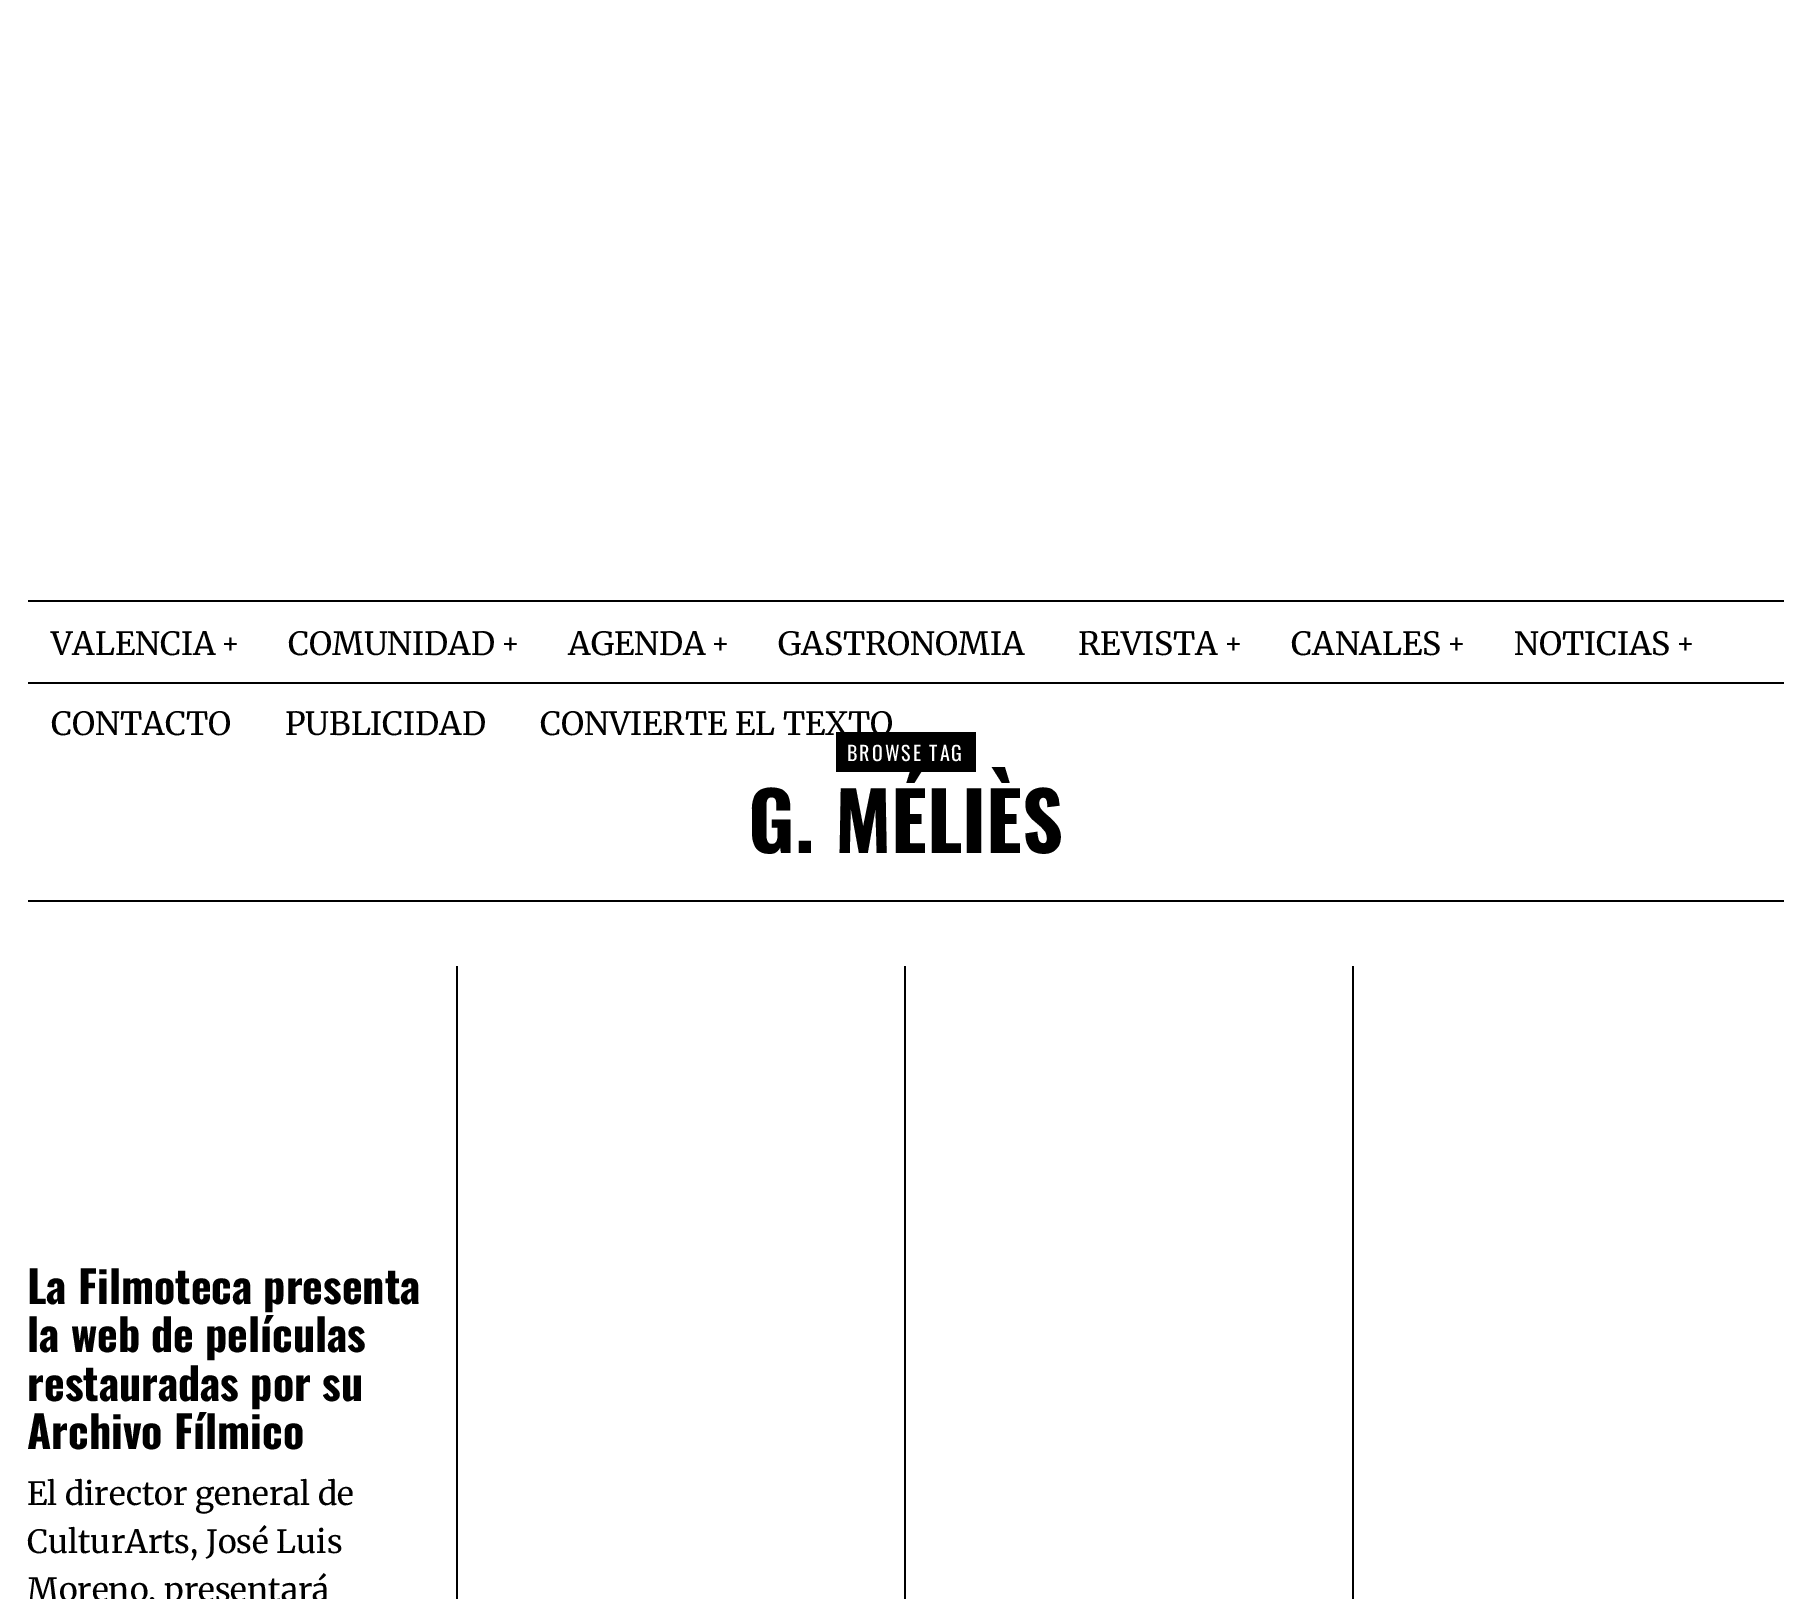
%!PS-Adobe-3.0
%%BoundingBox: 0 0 1812 1599
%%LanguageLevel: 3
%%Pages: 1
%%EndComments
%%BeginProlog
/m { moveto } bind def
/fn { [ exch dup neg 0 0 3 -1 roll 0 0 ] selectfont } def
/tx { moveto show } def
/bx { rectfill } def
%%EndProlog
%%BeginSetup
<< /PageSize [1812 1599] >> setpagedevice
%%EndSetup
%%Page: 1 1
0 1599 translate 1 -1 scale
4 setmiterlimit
1 setgray
0 0 1812 1599 bx
0 setgray
28 600 1756 2 bx
28 682 1756 2 bx
/Merriweather-Regular 32 fn
(VALENCIA) 51 655 tx
/Merriweather-Regular 28 fn
(+) 221 653 tx
/Merriweather-Regular 32 fn
(COMUNIDAD) 288 655 tx
/Merriweather-Regular 28 fn
(+) 501 653 tx
/Merriweather-Regular 32 fn
(AGENDA) 568 655 tx
/Merriweather-Regular 28 fn
(+) 711 653 tx
/Merriweather-Regular 32 fn
(GASTRONOMIA) 778 655 tx
(REVISTA) 1078 655 tx
/Merriweather-Regular 28 fn
(+) 1224 653 tx
/Merriweather-Regular 32 fn
(CANALES) 1291 655 tx
/Merriweather-Regular 28 fn
(+) 1447 653 tx
/Merriweather-Regular 32 fn
(NOTICIAS) 1514 655 tx
/Merriweather-Regular 28 fn
(+) 1676 653 tx
/Merriweather-Regular 32 fn
(CONTACTO) 51 735 tx
(PUBLICIDAD) 285 735 tx
836 732 140 40 bx
(CONVIERTE EL TEXTO) 540 735 tx
28 900 1756 2 bx
/Oswald-Regular 20 fn
1 setgray
847 761 m 2 0 (BROWSE TAG) ashow
/Oswald-Bold 80 fn
0 setgray
(G. MÉLIÈS) 748 853 tx
/Oswald-Bold 44 fn
(La Filmoteca presenta) 27 1304 tx
(la web de películas) 27 1352 tx
(restauradas por su) 27 1401 tx
(Archivo Fílmico) 27 1449 tx
/Merriweather-Regular 32 fn
(El director general de) 27 1505 tx
(CulturArts, José Luis) 27 1553 tx
(Moreno, presentará) 27 1601 tx
456 966 2 633 bx
904 966 2 633 bx
1352 966 2 633 bx
showpage
%%EOF
